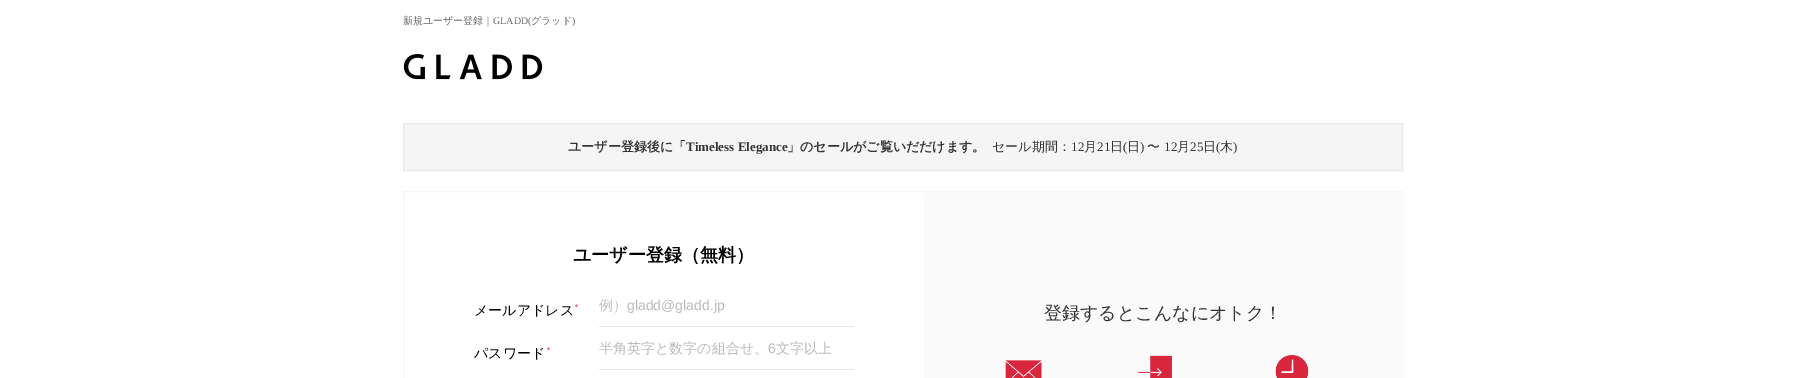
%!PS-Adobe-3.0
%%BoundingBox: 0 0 1820 378
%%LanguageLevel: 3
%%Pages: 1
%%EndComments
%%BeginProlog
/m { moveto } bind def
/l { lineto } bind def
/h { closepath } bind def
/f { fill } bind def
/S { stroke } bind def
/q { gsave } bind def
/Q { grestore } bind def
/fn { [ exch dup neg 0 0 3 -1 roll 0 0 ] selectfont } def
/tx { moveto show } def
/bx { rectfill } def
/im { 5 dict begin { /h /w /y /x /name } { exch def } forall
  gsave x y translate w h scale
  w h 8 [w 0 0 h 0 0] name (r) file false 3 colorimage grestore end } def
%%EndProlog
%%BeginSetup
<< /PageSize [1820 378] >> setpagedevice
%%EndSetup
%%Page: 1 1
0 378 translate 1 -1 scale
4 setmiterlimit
1 setgray
0 0 1820 378 bx
/WenQuanYiZenHei-Medium 10 fn
0.4 setgray
(新規ユーザー登録｜) 403 24 tx
/LiberationSerif-Regular 10 fn
(GLADD\() 493 24 tx
/WenQuanYiZenHei-Medium 10 fn
(グラッド) 531 24 tx
/LiberationSerif-Regular 10 fn
(\)) 572 24 tx
(image0.raw) 403 54 140 26 im
0.961 setgray
403.5 123.5 m 1402.5 123.5 l 1402.5 170.5 l 403.5 170.5 l h q f Q
0.91 setgray
S
/WenQuanYiZenHei-Bold 13 fn
0.2 setgray
(ユーザー登録後に「) 568 151 tx
/LiberationSerif-Bold 13 fn
(Timeless Elegance) 686 151 tx
/WenQuanYiZenHei-Bold 13 fn
(」のセールがご覧いだだけます。) 787 151 tx
/WenQuanYiZenHei-Medium 13 fn
(セール期間：) 992 151 tx
/LiberationSerif-Regular 13 fn
(12) 1071 151 tx
/WenQuanYiZenHei-Medium 13 fn
(月) 1084 151 tx
/LiberationSerif-Regular 13 fn
(21) 1097 151 tx
/WenQuanYiZenHei-Medium 13 fn
(日) 1110 151 tx
/LiberationSerif-Regular 13 fn
(\() 1123 151 tx
/WenQuanYiZenHei-Medium 13 fn
(日) 1127 151 tx
/LiberationSerif-Regular 13 fn
(\)) 1140 151 tx
/WenQuanYiZenHei-Medium 13 fn
(〜) 1147 151 tx
/LiberationSerif-Regular 13 fn
(12) 1164 151 tx
/WenQuanYiZenHei-Medium 13 fn
(月) 1177 151 tx
/LiberationSerif-Regular 13 fn
(25) 1190 151 tx
/WenQuanYiZenHei-Medium 13 fn
(日) 1203 151 tx
/LiberationSerif-Regular 13 fn
(\() 1216 151 tx
/WenQuanYiZenHei-Medium 13 fn
(木) 1220 151 tx
/LiberationSerif-Regular 13 fn
(\)) 1233 151 tx
0.961 setgray
403.5 191.5 999 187 rectstroke
/WenQuanYiZenHei-Bold 18 fn
0 setgray
(ユーザー登録（無料）) 573 261 tx
/WenQuanYiZenHei-Medium 14 fn
(メールアドレス) 474 315 tx
/WenQuanYiZenHei-Medium 7 fn
0.847 0.149 0.235 setrgbcolor
(＊) 573 309 tx
0.91 setgray
599 326 255 1 bx
/WenQuanYiZenHei-Medium 14 fn
0.733 setgray
(例）) 599 310 tx
/LiberationSans-Regular 14 fn
(gladd@gladd.jp) 627 310 tx
/WenQuanYiZenHei-Medium 14 fn
0 setgray
(パスワード) 474 358 tx
/WenQuanYiZenHei-Medium 7 fn
0.847 0.149 0.235 setrgbcolor
(＊) 545 352 tx
0.91 setgray
599 369 255 1 bx
/WenQuanYiZenHei-Medium 14 fn
0.733 setgray
(半角英字と数字の組合せ、) 599 353 tx
/LiberationSans-Regular 14 fn
(6) 768 353 tx
/WenQuanYiZenHei-Medium 14 fn
(文字以上) 776 353 tx
0.98 setgray
924 192 479 186 bx
/WenQuanYiZenHei-Medium 18 fn
0.2 setgray
(登録するとこんなにオトク！) 1044 319 tx
(image1.raw) 1005 355 304 23 im
showpage
%%EOF
